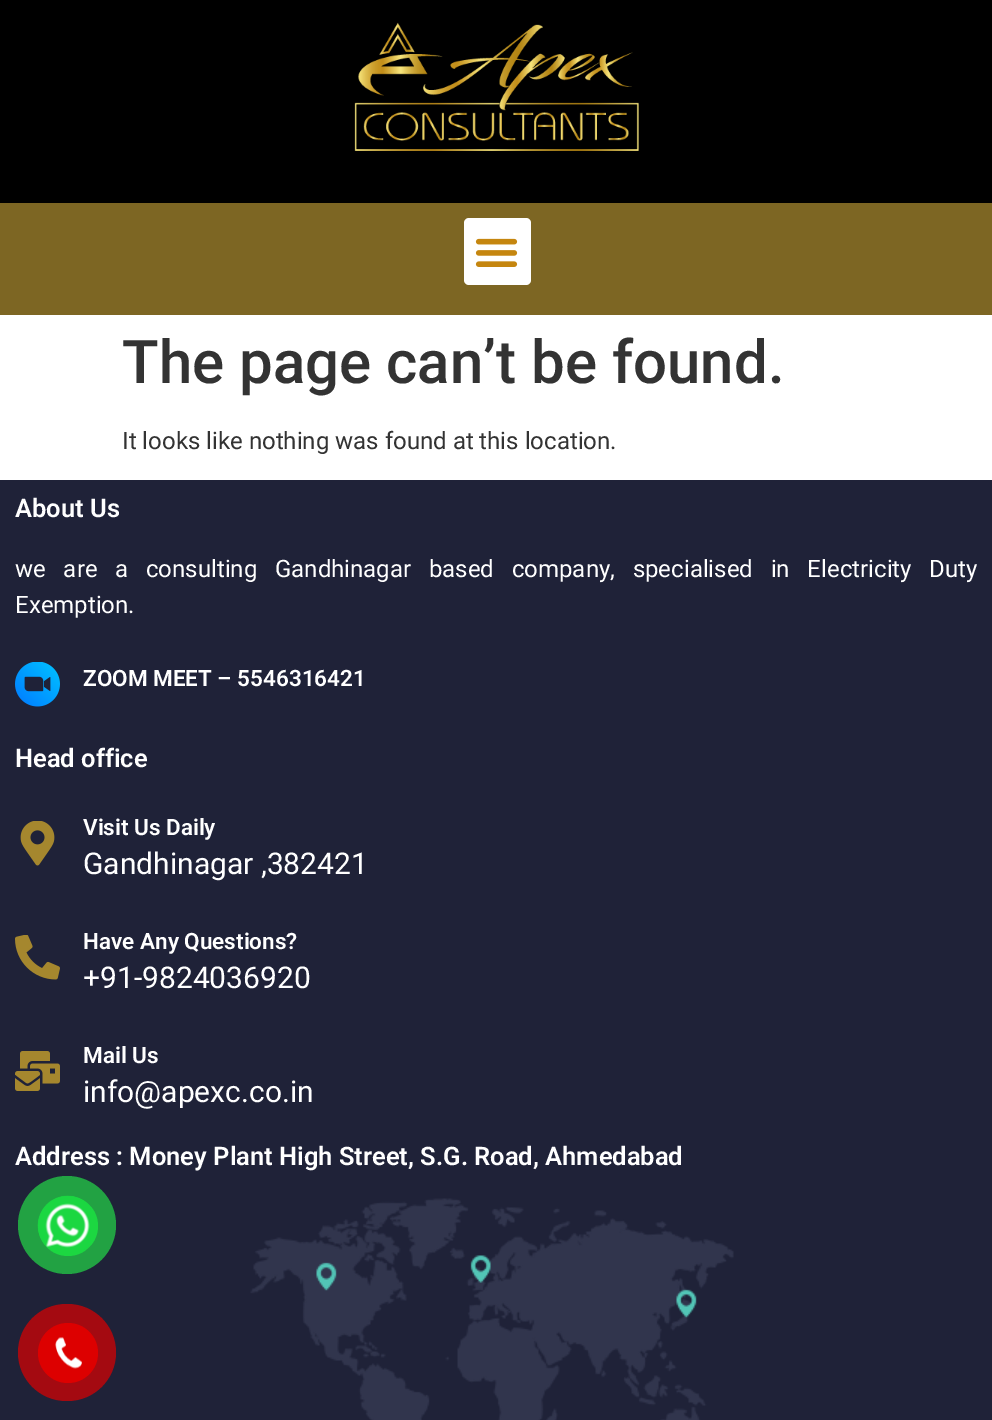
%!PS-Adobe-3.0
%%BoundingBox: 0 0 992 1420
%%LanguageLevel: 3
%%Pages: 1
%%EndComments
%%BeginProlog
/m { moveto } bind def
/f { fill } bind def
/fn { [ exch dup neg 0 0 3 -1 roll 0 0 ] selectfont } def
/tx { moveto show } def
/bx { rectfill } def
/ci { newpath 0 360 arc closepath } def
/rr { 5 dict begin { /r /h /w /y /x } { exch def } forall
  x r add y moveto x w add y 2 copy h add r arct x w add y h add x 1 index r arct
  x y h add x y r arct x y 2 copy exch w add exch r arct closepath end } def
/im { 5 dict begin { /h /w /y /x /name } { exch def } forall
  gsave x y translate w h scale
  w h 8 [w 0 0 h 0 0] name (r) file false 3 colorimage grestore end } def
%%EndProlog
%%BeginSetup
<< /PageSize [992 1420] >> setpagedevice
%%EndSetup
%%Page: 1 1
0 1420 translate 1 -1 scale
4 setmiterlimit
1 setgray
0 0 992 1420 bx
0 setgray
0 0 992 203 bx
(image0.raw) 354 22 285 129 im
0.49 0.4 0.137 setrgbcolor
0 203 992 112 bx
1 setgray
464 218 67 67 5 rr f
(image1.raw) 475 238 43 29 im
/Roboto-Medium 60 fn
0.2 setgray
(The page can’t be found.) 122 383 tx
/Roboto-Regular 24 fn
(It looks like nothing was found at this location.) 122 449 tx
0.122 0.133 0.22 setrgbcolor
0 480 992 940 bx
/Roboto-SemiBold 25.5 fn
1 setgray
(About Us) 15 517 tx
/Roboto-Regular 24 fn
15 577 m 11.75 0 32 (we are a consulting Gandhinagar based company, specialised in Electricity Duty) widthshow
(Exemption.) 15 613 tx
(image2.raw) 15 662 45 45 im
/Roboto-SemiBold 22.5 fn
(ZOOM MEET – 5546316421) 83 686 tx
/Roboto-SemiBold 25.5 fn
(Head office) 15 767 tx
(image3.raw) 20 821 35 45 im
/Roboto-SemiBold 22.5 fn
(Visit Us Daily) 83 835 tx
/Roboto-Regular 30 fn
(Gandhinagar ,382421) 83 874 tx
(image4.raw) 15 935 45 45 im
/Roboto-SemiBold 22.5 fn
(Have Any Questions?) 83 949 tx
/Roboto-Regular 30 fn
(+91-9824036920) 83 988 tx
(image5.raw) 15 1051 45 40 im
/Roboto-SemiBold 22.5 fn
(Mail Us) 83 1063 tx
/Roboto-Regular 30 fn
(info@apexc.co.in) 83 1102 tx
/Roboto-SemiBold 25.5 fn
(Address : Money Plant High Street, S.G. Road, Ahmedabad) 15 1165 tx
(image6.raw) 250 1198 484 222 im
0.133 0.635 0.263 setrgbcolor
67 1225 49 ci f
0.11 0.843 0.255 setrgbcolor
68 1226 30 ci f
(image7.raw) 37 1195 54 55 im
0.643 0.039 0.067 setrgbcolor
18 1304 98 97 48.5 rr f
0.867 0 0 setrgbcolor
68 1353 30 ci f
(image8.raw) 55 1337 27 32 im
showpage
%%EOF
